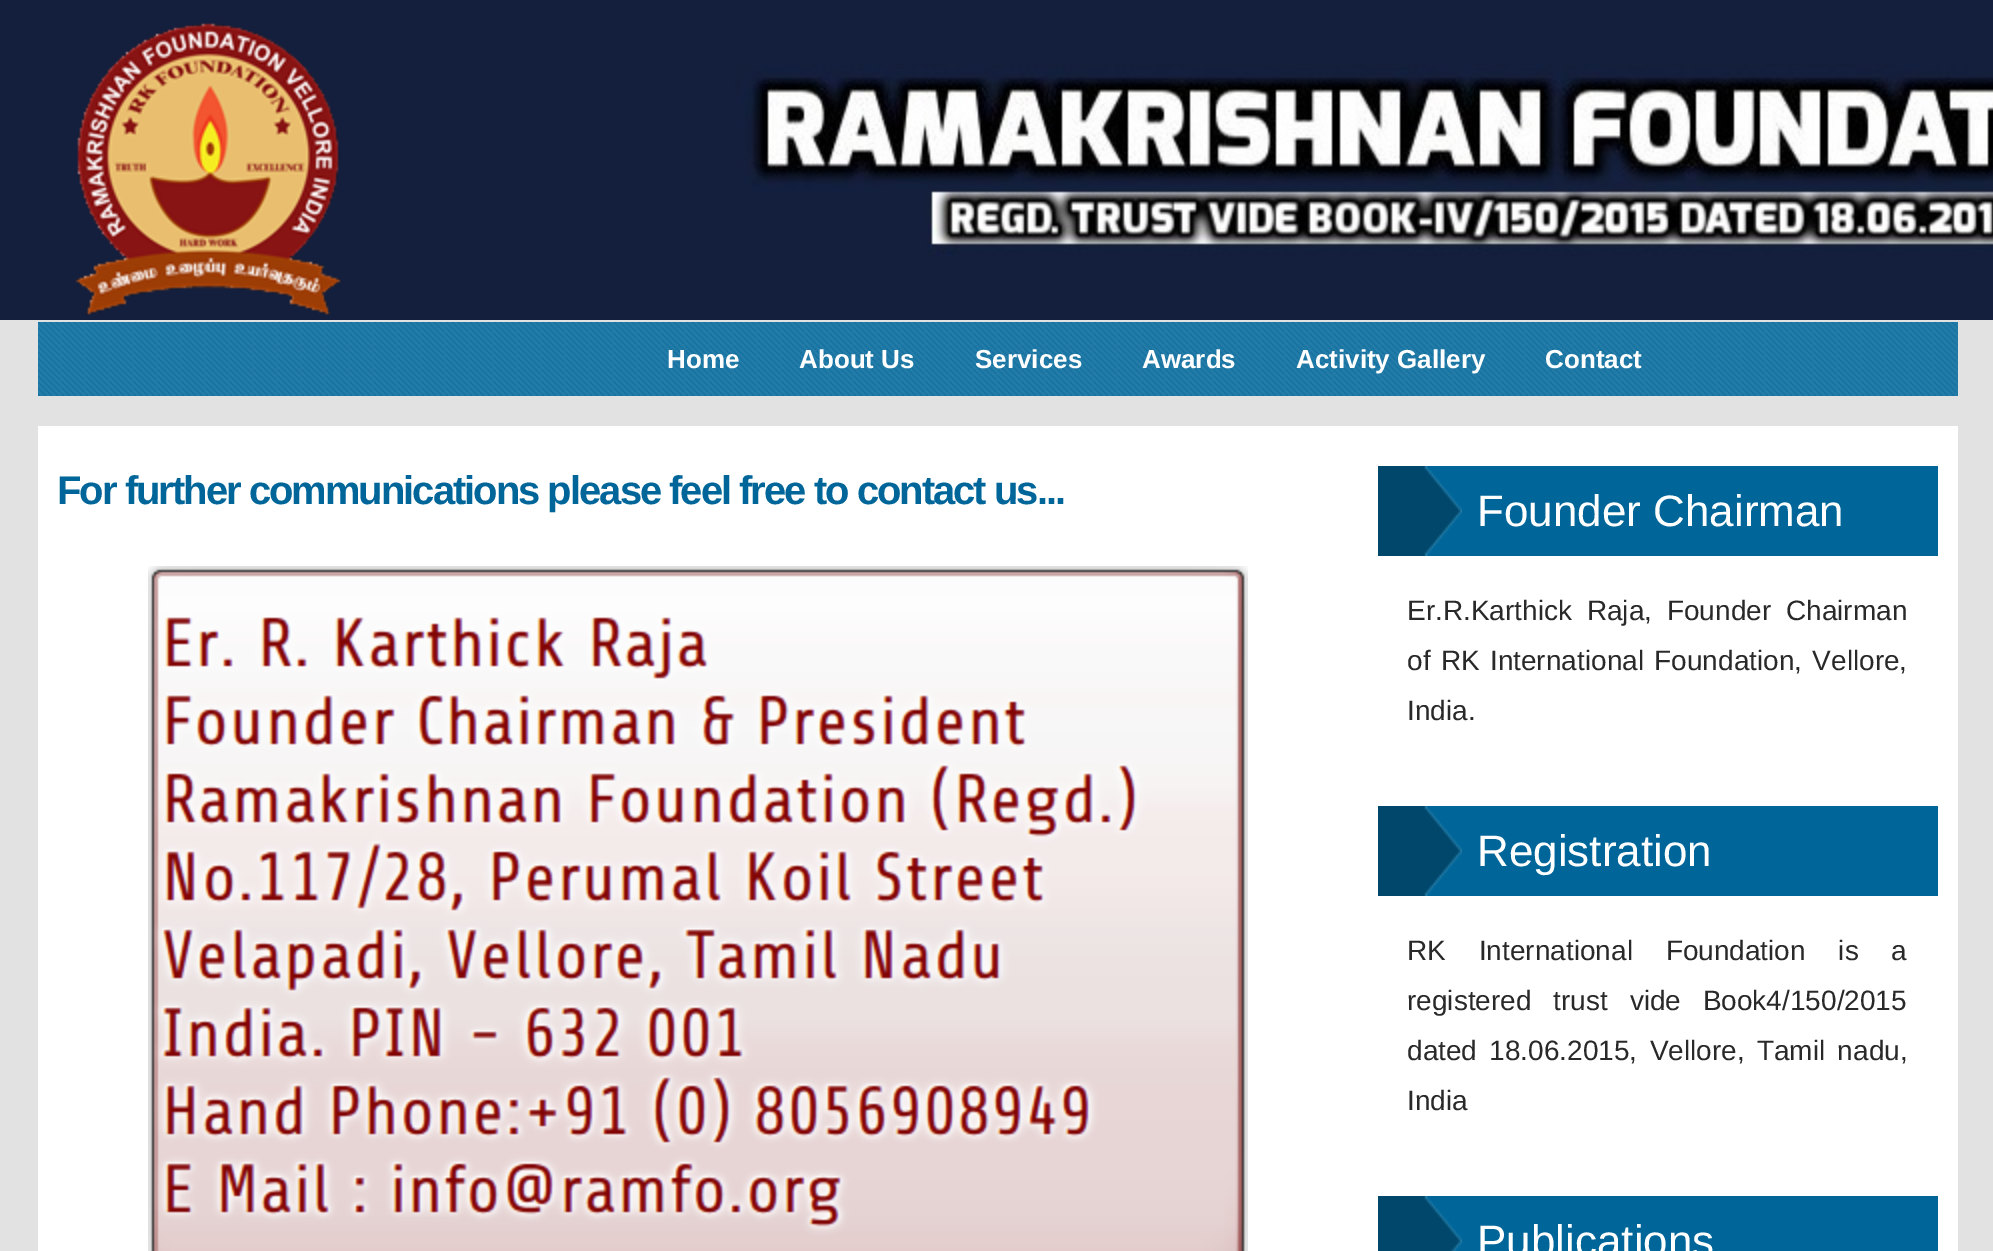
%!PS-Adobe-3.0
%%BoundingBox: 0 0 1993 1251
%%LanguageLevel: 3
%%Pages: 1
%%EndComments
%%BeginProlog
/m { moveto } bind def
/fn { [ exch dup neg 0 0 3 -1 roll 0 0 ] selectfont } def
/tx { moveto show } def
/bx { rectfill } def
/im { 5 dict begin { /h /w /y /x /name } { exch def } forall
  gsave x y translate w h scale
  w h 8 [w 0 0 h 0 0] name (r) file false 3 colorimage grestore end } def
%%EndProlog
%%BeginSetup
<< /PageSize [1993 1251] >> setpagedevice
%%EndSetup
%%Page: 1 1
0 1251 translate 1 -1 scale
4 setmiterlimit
0.886 setgray
0 0 1993 1251 bx
(image0.raw) 0 0 1993 320 im
(image1.raw) 75 23 267 292 im
0 0.4 0.6 setrgbcolor
38 322 1920 74 bx
(image2.raw) 38 322 1920 74 im
/LiberationSans-Bold 26 fn
1 setgray
(Home) 667 368 tx
(About Us) 799 368 tx
(Services) 975 368 tx
(Awards) 1142 368 tx
(Activity Gallery) 1296 368 tx
(Contact) 1545 368 tx
38 426 1920 825 bx
/LiberationSans-Bold 40 fn
0 0.4 0.6 setrgbcolor
57 504 m -2 0 (For further communications please feel free to contact us...) ashow
(image3.raw) 148 566 1100 685 im
1378 466 560 90 bx
(image4.raw) 1378 466 84 90 im
/LiberationSans-Regular 44 fn
1 setgray
(Founder Chairman) 1477 526 tx
/LiberationSans-Regular 28 fn
0.161 setgray
1407 620 m 7 0 32 (Er.R.Karthick Raja, Founder Chairman) widthshow
1407 670 m 2.5 0 32 (of RK International Foundation, Vellore,) widthshow
(India.) 1407 720 tx
0 0.4 0.6 setrgbcolor
1378 806 560 90 bx
(image4.raw) 1378 806 84 90 im
/LiberationSans-Regular 44 fn
1 setgray
(Registration) 1477 866 tx
/LiberationSans-Regular 28 fn
0.161 setgray
1407 960 m 25 0 32 (RK International Foundation is a) widthshow
1407 1010 m 14 0 32 (registered trust vide Book4/150/2015) widthshow
1407 1060 m 4.5 0 32 (dated 18.06.2015, Vellore, Tamil nadu,) widthshow
(India) 1407 1110 tx
0 0.4 0.6 setrgbcolor
1378 1196 560 55 bx
(image5.raw) 1378 1196 84 55 im
/LiberationSans-Regular 44 fn
1 setgray
(Publications) 1477 1256 tx
showpage
%%EOF
